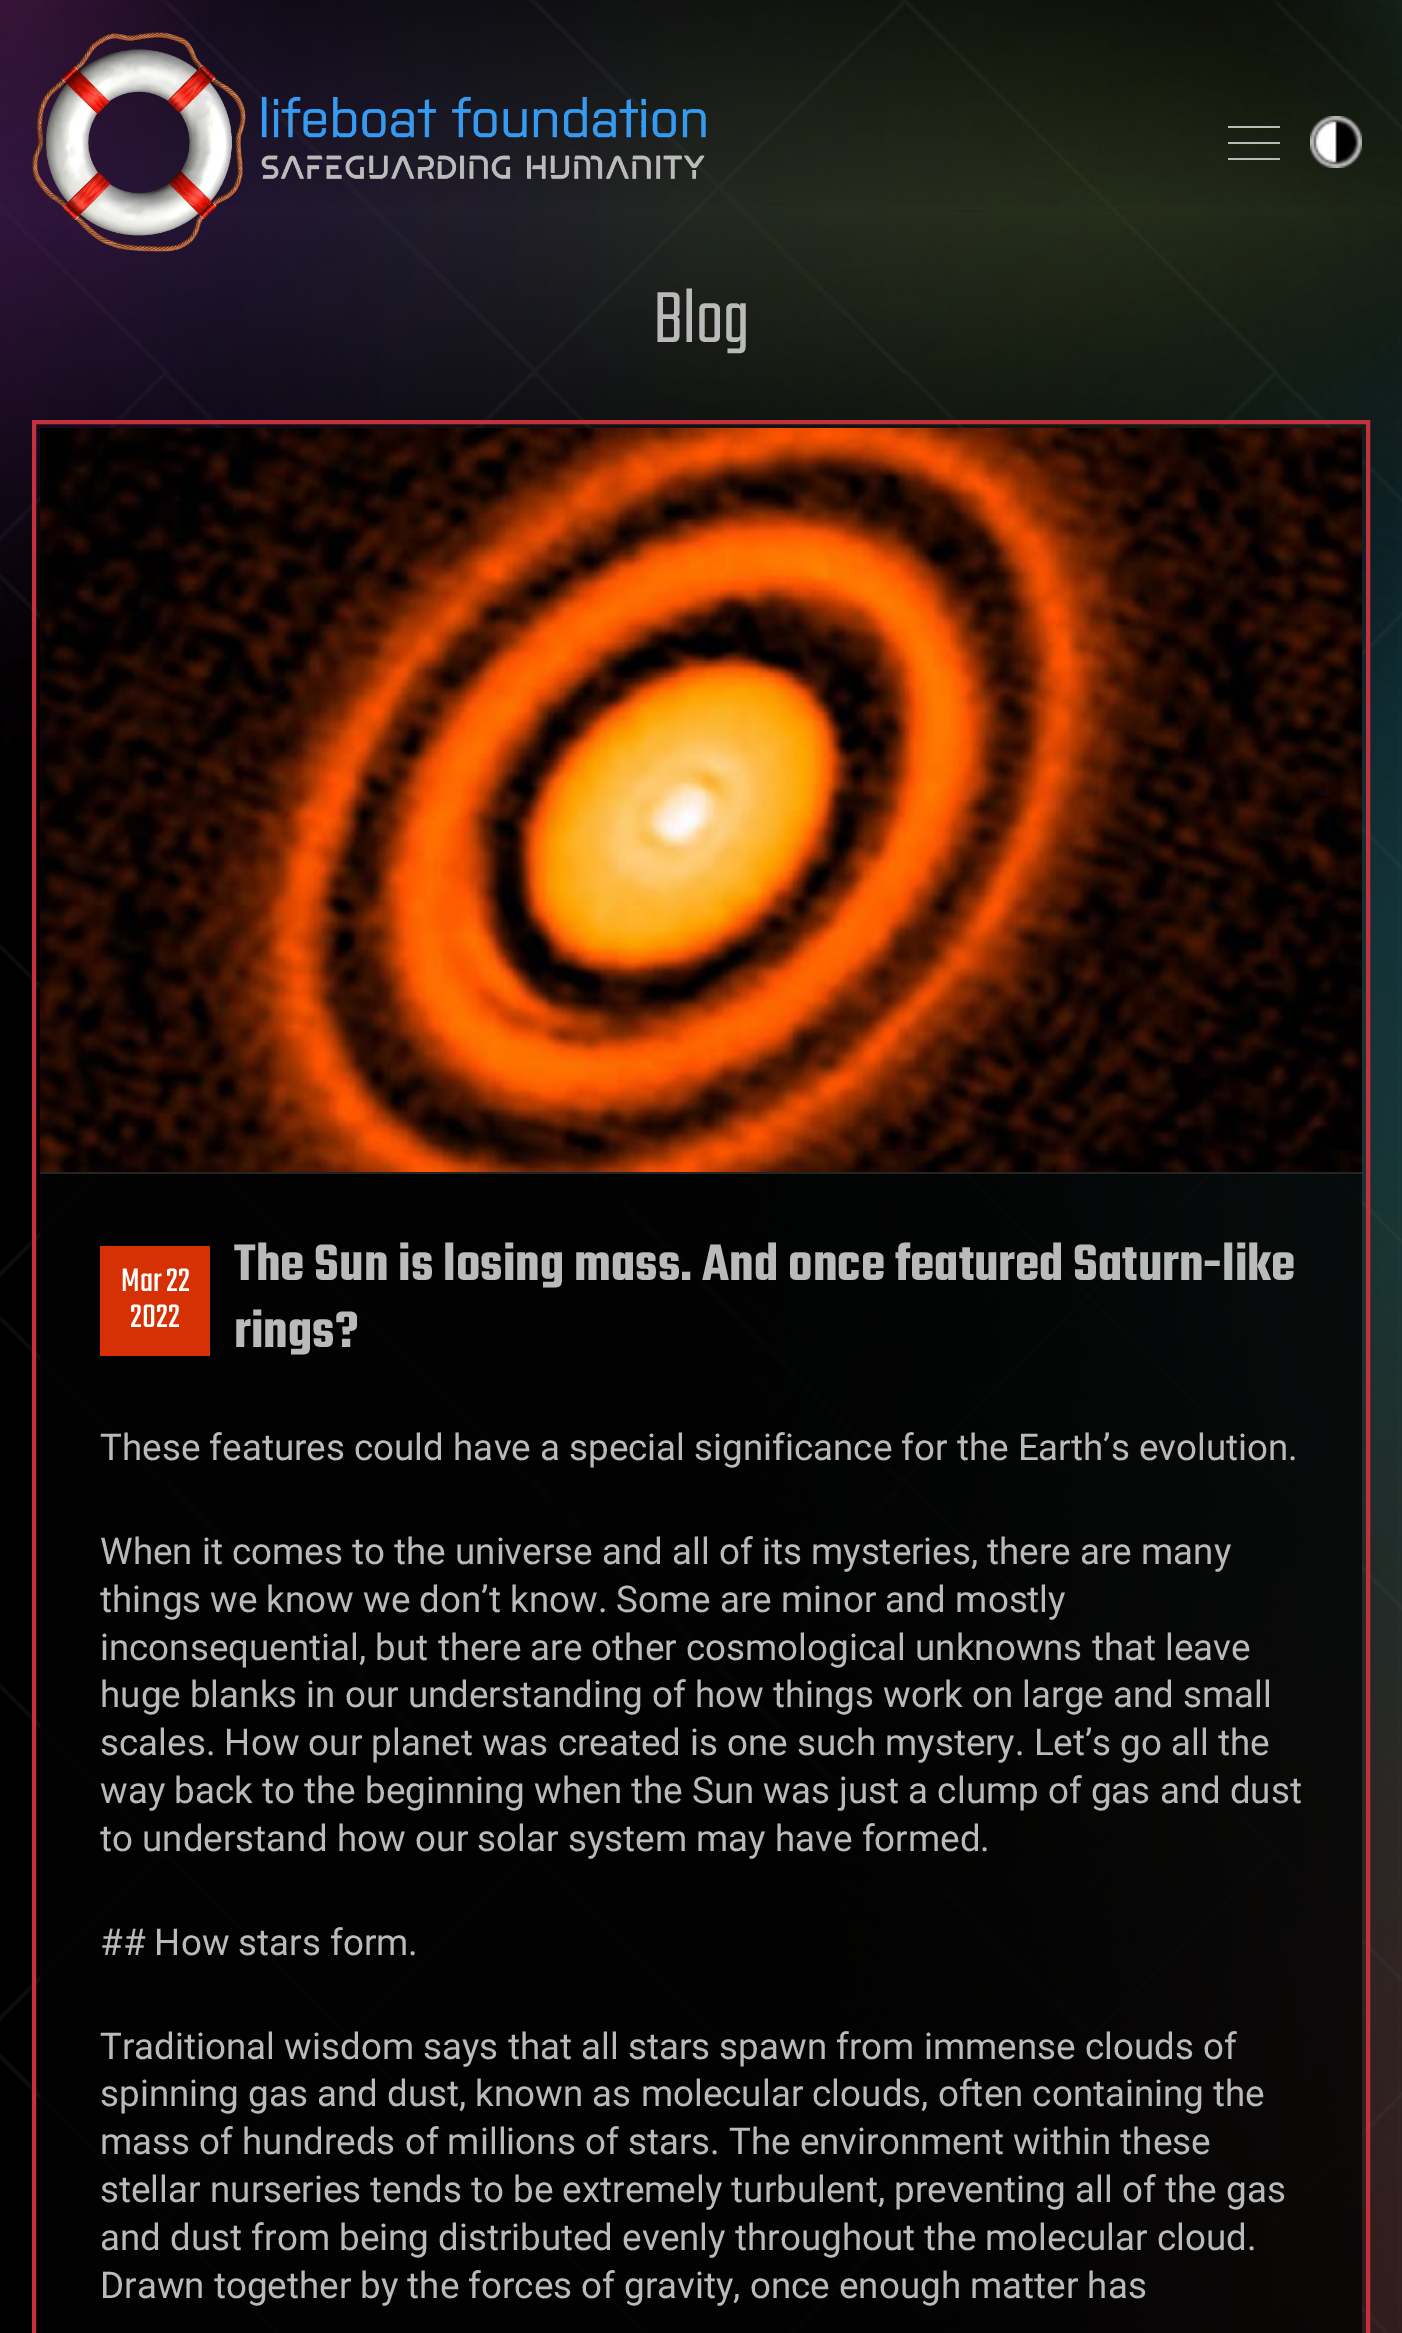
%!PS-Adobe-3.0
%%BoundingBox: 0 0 1402 2333
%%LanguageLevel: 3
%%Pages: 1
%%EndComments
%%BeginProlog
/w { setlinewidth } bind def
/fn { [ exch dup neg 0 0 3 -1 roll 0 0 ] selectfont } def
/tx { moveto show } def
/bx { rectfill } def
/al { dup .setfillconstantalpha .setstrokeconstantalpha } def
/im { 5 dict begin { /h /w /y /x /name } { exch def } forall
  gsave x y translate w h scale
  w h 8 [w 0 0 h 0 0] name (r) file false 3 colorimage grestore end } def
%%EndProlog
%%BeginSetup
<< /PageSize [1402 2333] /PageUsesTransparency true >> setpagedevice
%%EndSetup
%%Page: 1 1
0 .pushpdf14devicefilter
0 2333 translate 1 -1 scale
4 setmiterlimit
0 setgray
0 0 1402 2333 bx
(image0.raw) 0 0 1402 2333 im
(image3.raw) 0 0 1402 658 im
(image1.raw) 32 32 674 220 im
0.729 setgray
1228 142 52 2 bx
1228 126 52 2 bx
1228 158 52 2 bx
(image2.raw) 1310 116 52 52 im
/Teko-Light 80 fn
(Blog) 653 342 tx
0.769 0.188 0.231 setrgbcolor
4 w
34 422 1334 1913 rectstroke
0.141 setgray
40 1172 1322 2 bx
(image4.raw) 40 428 1322 744 im
0.8 al
0.008 setgray
40 1174 1322 1159 bx
1 al
0.835 0.192 0.02 setrgbcolor
100 1246 110 110 bx
/Teko-Regular 36 fn
1 setgray
(Mar 22) 121 1291 tx
(2022) 130 1327 tx
/Teko-SemiBold 56 fn
0.729 setgray
(The Sun is losing mass. And once featured Saturn-like) 234 1280 tx
(rings?) 234 1347 tx
/Roboto-Regular 36.8 fn
(These features could have a special significance for the Earth’s evolution.) 100 1460 tx
(When it comes to the universe and all of its mysteries, there are many) 100 1564 tx
(things we know we don’t know. Some are minor and mostly) 100 1612 tx
(inconsequential, but there are other cosmological unknowns that leave) 100 1660 tx
(huge blanks in our understanding of how things work on large and small) 100 1707 tx
(scales. How our planet was created is one such mystery. Let’s go all the) 100 1755 tx
(way back to the beginning when the Sun was just a clump of gas and dust) 100 1803 tx
(to understand how our solar system may have formed.) 100 1851 tx
(## How stars form.) 100 1955 tx
(Traditional wisdom says that all stars spawn from immense clouds of) 100 2059 tx
(spinning gas and dust, known as molecular clouds, often containing the) 100 2106 tx
(mass of hundreds of millions of stars. The environment within these) 100 2154 tx
(stellar nurseries tends to be extremely turbulent, preventing all of the gas) 100 2202 tx
(and dust from being distributed evenly throughout the molecular cloud.) 100 2250 tx
(Drawn together by the forces of gravity, once enough matter has) 100 2298 tx
.poppdf14devicefilter showpage
%%EOF
